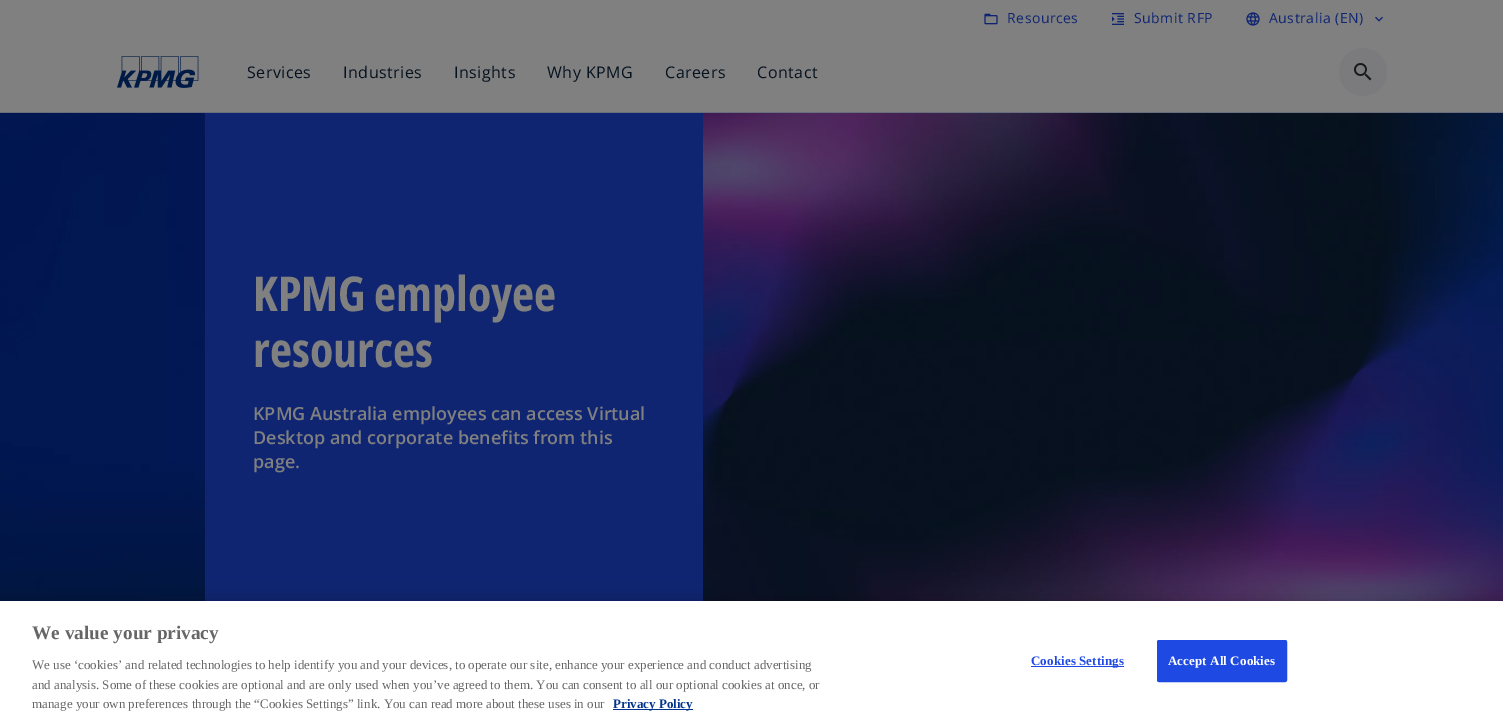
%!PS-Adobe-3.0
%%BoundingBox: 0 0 1503 724
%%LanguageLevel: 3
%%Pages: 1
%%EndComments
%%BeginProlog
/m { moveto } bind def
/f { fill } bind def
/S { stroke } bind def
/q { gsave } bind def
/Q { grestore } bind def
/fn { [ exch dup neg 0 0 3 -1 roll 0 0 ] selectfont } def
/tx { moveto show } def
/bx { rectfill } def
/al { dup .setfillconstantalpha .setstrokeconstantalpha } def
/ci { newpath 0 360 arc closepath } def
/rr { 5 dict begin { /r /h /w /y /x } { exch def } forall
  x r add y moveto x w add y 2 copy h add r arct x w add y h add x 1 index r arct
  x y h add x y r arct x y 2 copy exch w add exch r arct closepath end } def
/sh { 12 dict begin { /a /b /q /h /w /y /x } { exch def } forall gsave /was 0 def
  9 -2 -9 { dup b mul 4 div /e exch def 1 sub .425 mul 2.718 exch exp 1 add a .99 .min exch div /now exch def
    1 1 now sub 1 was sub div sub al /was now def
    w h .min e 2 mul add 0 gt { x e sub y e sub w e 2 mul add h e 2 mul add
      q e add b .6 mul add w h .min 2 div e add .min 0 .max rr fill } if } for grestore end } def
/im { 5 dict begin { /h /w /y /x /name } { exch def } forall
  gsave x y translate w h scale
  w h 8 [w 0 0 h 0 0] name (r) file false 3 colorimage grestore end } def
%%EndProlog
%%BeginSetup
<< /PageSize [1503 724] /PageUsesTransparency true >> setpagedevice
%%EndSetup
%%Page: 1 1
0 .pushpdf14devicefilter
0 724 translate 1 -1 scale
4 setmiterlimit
0.502 setgray
0 0 1503 724 bx
(image0.raw) 984 13 14 12 im
/OpenSans-Regular 14 fn
0.059 0.145 0.443 setrgbcolor
1007 23 m 0.5 0 (Resources) ashow
(image1.raw) 1112 13 12 12 im
1134 23 m 0.5 0 (Submit RFP) ashow
(image2.raw) 1246 12 14 14 im
1269 23 m 0.5 0 (Australia \(EN\)) ashow
(image3.raw) 1375 16 8 6 im
0.412 0.431 0.49 setrgbcolor
0 112 1503 1 bx
(image4.raw) 117 56 82 32 im
/OpenSans-Regular 16 fn
0.024 0.071 0.118 setrgbcolor
247 78 m 0.5 0 (Services) ashow
343 78 m 0.5 0 (Industries) ashow
454 78 m 0.5 0 (Insights) ashow
547 78 m 0.5 0 (Why KPMG) ashow
665 78 m 0.5 0 (Careers) ashow
757 78 m 0.5 0 (Contact) ashow
0.482 0.482 0.49 setrgbcolor
1363 72 24 ci f
(image5.raw) 1354 63 18 18 im
(image6.raw) 0 113 1503 488 im
0.059 0.145 0.443 setrgbcolor
205 113 498 488 bx
/OpenSansCondensed-Bold 48 fn
0.502 setgray
(KPMG employee) 253 311 tx
(resources) 253 367 tx
/OpenSans-SemiBold 18 fn
(KPMG Australia employees can access Virtual) 253 420 tx
(Desktop and corporate benefits from this) 253 444 tx
(page.) 253 468 tx
0 setgray
0 601 1503 123 0 9 0.2 sh
1 setgray
0 601 1503 123 bx
/LiberationSerif-Bold 19.25 fn
0.4 setgray
(We value your privacy) 32 639 tx
/LiberationSerif-Regular 13 fn
(We use ‘cookies’ and related technologies to help identify you and your devices, to operate our site, enhance your experience and conduct advertising) 32 669 tx
(and analysis. Some of these cookies are optional and are only used when you’ve agreed to them. You can consent to all our optional cookies at once, or) 32 689 tx
(manage your own preferences through the “Cookies Settings” link. You can read more about these uses in our) 32 708 tx
0 0.2 0.553 setrgbcolor
613 709 80 1 bx
/LiberationSerif-Bold 13 fn
(Privacy Policy) 613 708 tx
0.118 0.286 0.886 setrgbcolor
1031 666 93 1 bx
1031 665 m 0.1 0 (Cookies Settings) ashow
1157.5 640.5 129 41 1.5 rr q f Q
S
1 setgray
1168 665 m 0.1 0 (Accept All Cookies) ashow
.poppdf14devicefilter showpage
%%EOF
